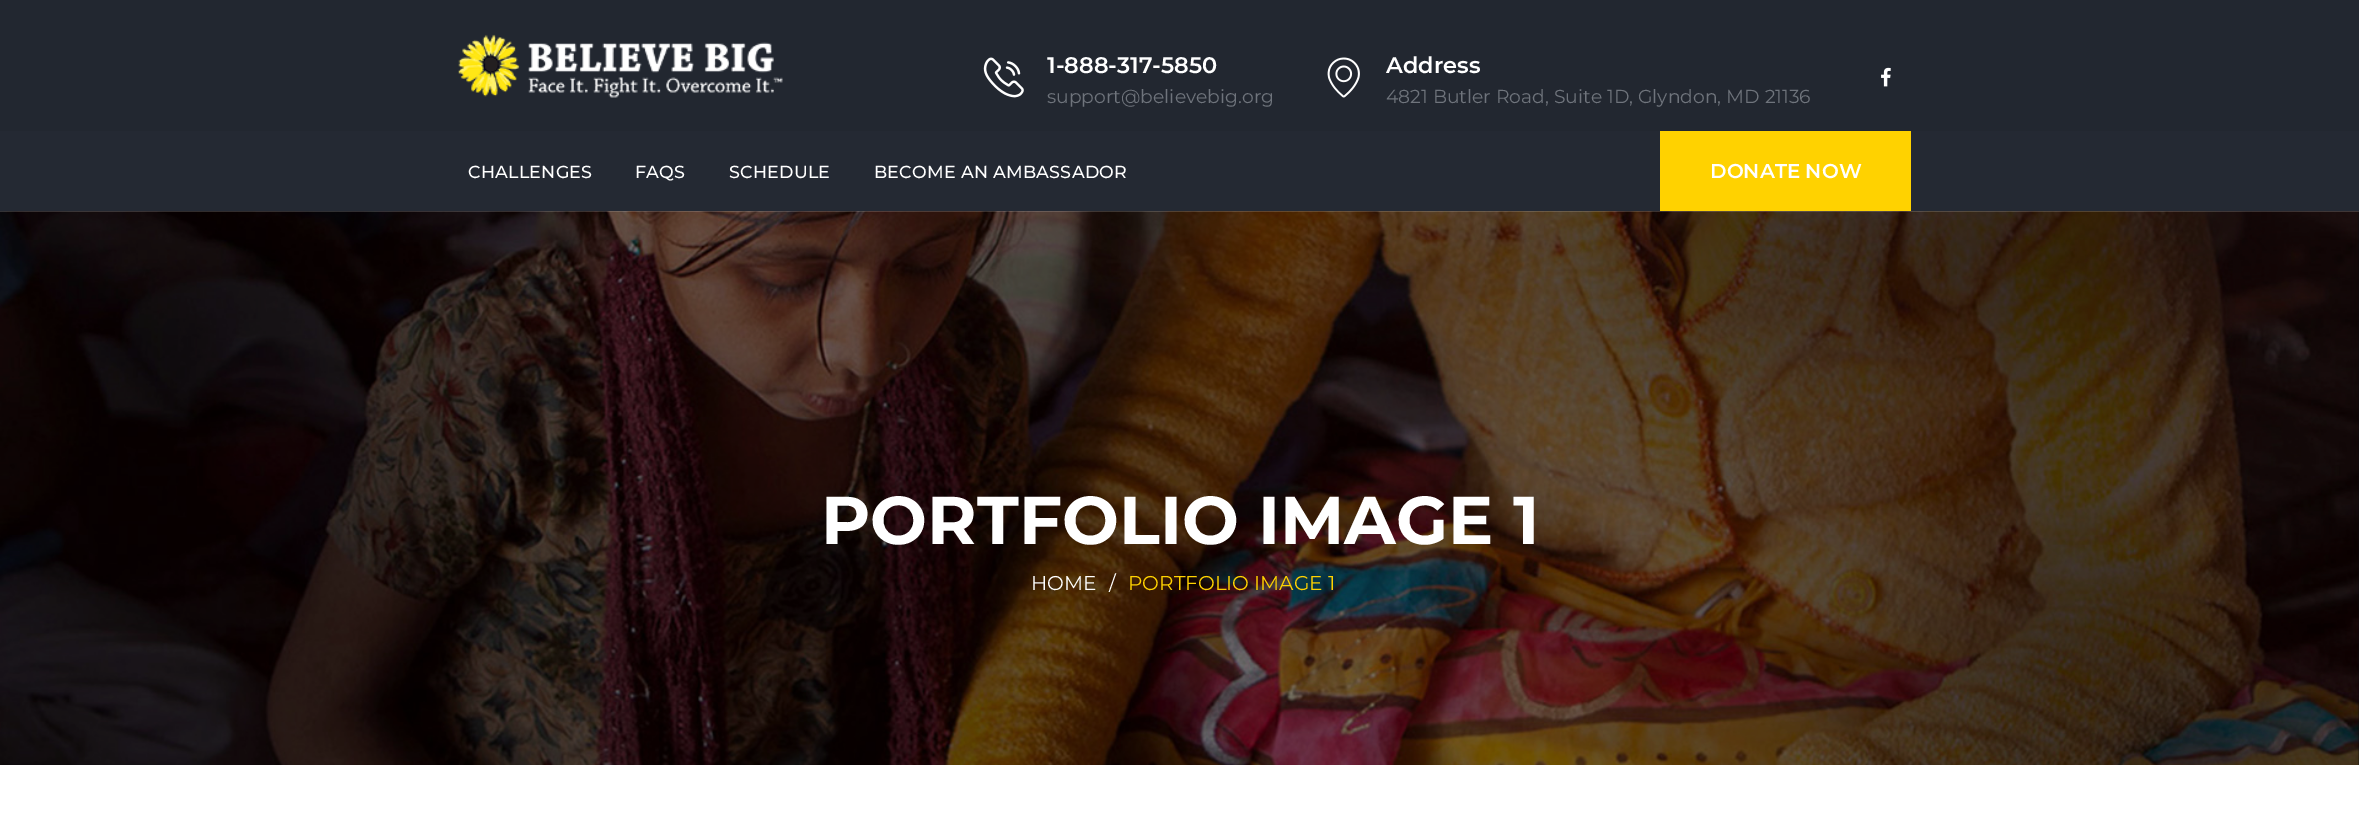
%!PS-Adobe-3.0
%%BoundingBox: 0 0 2359 839
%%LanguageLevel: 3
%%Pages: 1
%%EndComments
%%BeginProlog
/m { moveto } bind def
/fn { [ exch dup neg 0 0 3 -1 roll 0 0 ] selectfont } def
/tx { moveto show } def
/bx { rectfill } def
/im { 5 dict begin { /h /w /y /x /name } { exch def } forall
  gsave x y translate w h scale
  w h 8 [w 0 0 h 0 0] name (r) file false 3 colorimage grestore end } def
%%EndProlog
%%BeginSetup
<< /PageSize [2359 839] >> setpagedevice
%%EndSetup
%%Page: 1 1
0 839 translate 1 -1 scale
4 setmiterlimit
1 setgray
0 0 2359 839 bx
0.133 0.153 0.188 setrgbcolor
0 0 2359 131 bx
(image0.raw) 458 34 325 64 im
(image1.raw) 983 57 41 41 im
/Montserrat-SemiBold 22.5 fn
1 setgray
(1-888-317-5850) 1047 73 tx
/Montserrat-Regular 18.75 fn
0.435 0.455 0.486 setrgbcolor
(support@believebig.org) 1047 103 tx
(image2.raw) 1327 57 33 41 im
/Montserrat-SemiBold 22.5 fn
1 setgray
(Address) 1386 73 tx
/Montserrat-Regular 18.75 fn
0.435 0.455 0.486 setrgbcolor
(4821 Butler Road, Suite 1D, Glyndon, MD 21136) 1386 103 tx
(image3.raw) 1881 67 10 20 im
0.141 0.161 0.2 setrgbcolor
0 131 2359 80 bx
/Montserrat-Medium 17.5 fn
1 setgray
468 178 m 0.2 0 (CHALLENGES) ashow
635 178 m 0.2 0 (FAQS) ashow
729 178 m 0.2 0 (SCHEDULE) ashow
874 178 m 0.2 0 (BECOME AN AMBASSADOR) ashow
1 0.824 0 setrgbcolor
1660 131 251 80 bx
/Montserrat-SemiBold 20 fn
1 setgray
(DONATE NOW) 1710 178 tx
(image4.raw) 0 211 2359 554 im
/Montserrat-Bold 67.5 fn
(PORTFOLIO IMAGE 1) 821 544 tx
/Montserrat-Regular 20 fn
(HOME) 1031 590 tx
(/) 1109 590 tx
1 0.824 0 setrgbcolor
(PORTFOLIO IMAGE 1) 1128 590 tx
showpage
%%EOF
